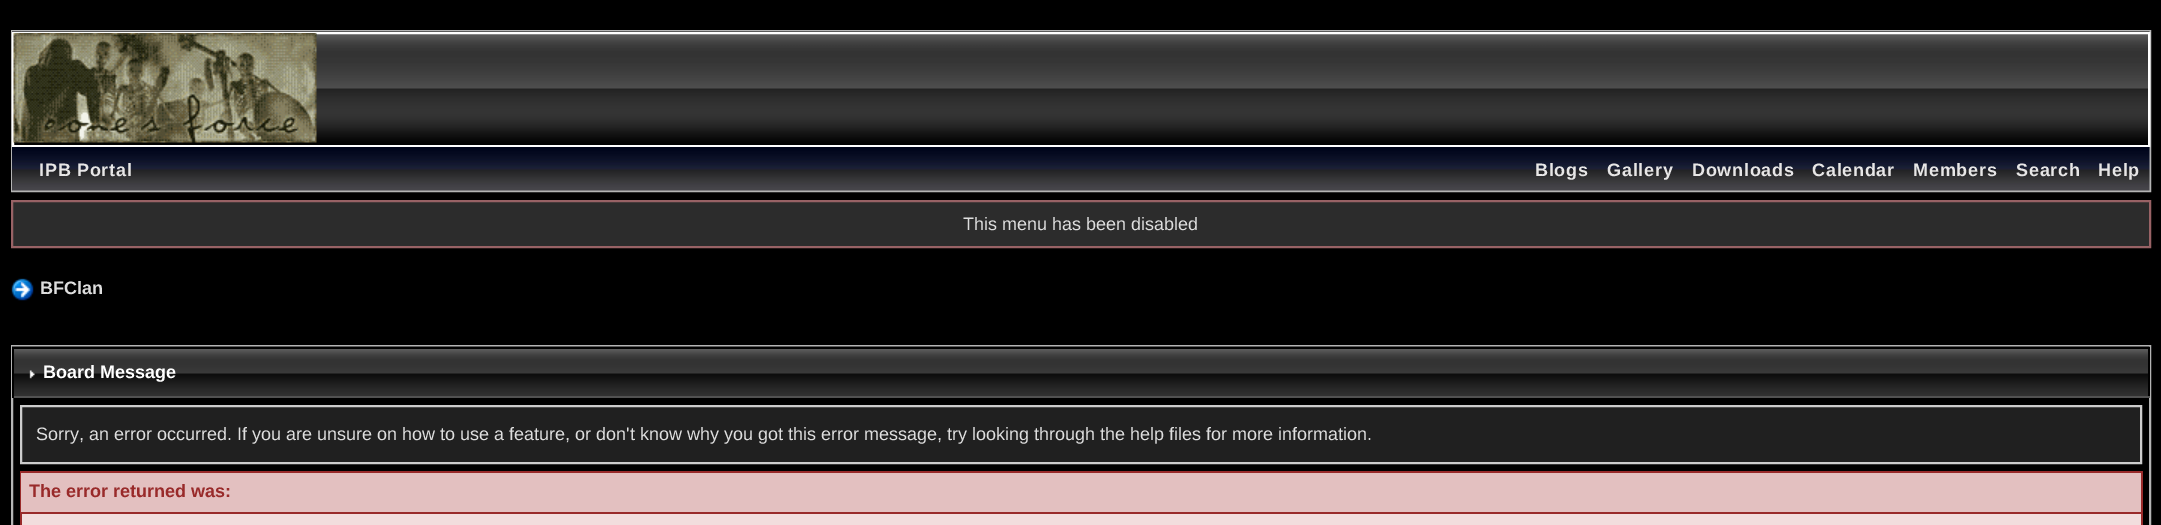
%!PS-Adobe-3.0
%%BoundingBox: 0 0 2161 525
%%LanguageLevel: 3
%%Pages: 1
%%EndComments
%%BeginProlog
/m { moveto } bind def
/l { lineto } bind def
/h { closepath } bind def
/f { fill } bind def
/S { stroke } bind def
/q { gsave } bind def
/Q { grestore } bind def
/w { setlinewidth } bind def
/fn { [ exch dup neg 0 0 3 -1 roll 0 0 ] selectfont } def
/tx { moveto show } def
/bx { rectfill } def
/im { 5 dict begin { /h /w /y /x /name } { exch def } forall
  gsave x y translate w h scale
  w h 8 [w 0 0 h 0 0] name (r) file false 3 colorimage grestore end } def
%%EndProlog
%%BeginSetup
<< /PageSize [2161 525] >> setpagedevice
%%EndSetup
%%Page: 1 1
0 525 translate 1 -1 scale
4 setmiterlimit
0 setgray
0 0 2161 525 bx
0.706 setgray
2 w
12 31 2138 160 rectstroke
(image0.raw) 12 31 2138 114 im
1 setgray
13 33 2136 113 rectstroke
(image1.raw) 13 33 304 110 im
(image2.raw) 12 147 2138 44 im
/LiberationSans-Bold 18 fn
0.906 0.902 0.902 setrgbcolor
39 176 m 0.75 0 (IPB Portal) ashow
1535 176 m 0.75 0 (Blogs) ashow
1607 176 m 0.75 0 (Gallery) ashow
1692 176 m 0.75 0 (Downloads) ashow
1812 176 m 0.75 0 (Calendar) ashow
1913 176 m 0.75 0 (Members) ashow
2016 176 m 0.75 0 (Search) ashow
2098 176 m 0.75 0 (Help) ashow
0.173 setgray
12 201 m 2150 201 l 2150 247 l 12 247 l h q f Q
0.596 0.384 0.396 setrgbcolor
S
/LiberationSans-Regular 18 fn
0.871 setgray
(This menu has been disabled) 963 230 tx
(image3.raw) 11 278 23 23 im
/LiberationSans-Bold 18 fn
(BFClan) 40 294 tx
0.706 setgray
12 346 2138 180 rectstroke
(image4.raw) 12 346 2138 50 im
0 setgray
12 347 2138 2 bx
2148 347 2 51 bx
0.322 setgray
12 396 2138 2 bx
0 setgray
12 347 2 51 bx
(image5.raw) 29 370 6 9 im
1 setgray
(Board Message) 43 378 tx
0.125 setgray
21 406 m 2141 406 l 2141 463 l 21 463 l h q f Q
0.8 setgray
S
/LiberationSans-Regular 18 fn
0.871 setgray
(Sorry, an error occurred. If you are unsure on how to use a feature, or don't know why you got this error message, try looking through the help files for more information.) 36 440 tx
0.949 0.867 0.867 setrgbcolor
22 514 2119 11 bx
0.6 0.165 0.165 setrgbcolor
2141 471 2 54 bx
20 471 2 54 bx
0.89 0.753 0.753 setrgbcolor
21 473 2120 39 bx
0.6 0.165 0.165 setrgbcolor
21 471 2120 2 bx
21 512 2120 2 bx
/LiberationSans-Bold 18 fn
(The error returned was:) 29 497 tx
showpage
%%EOF
